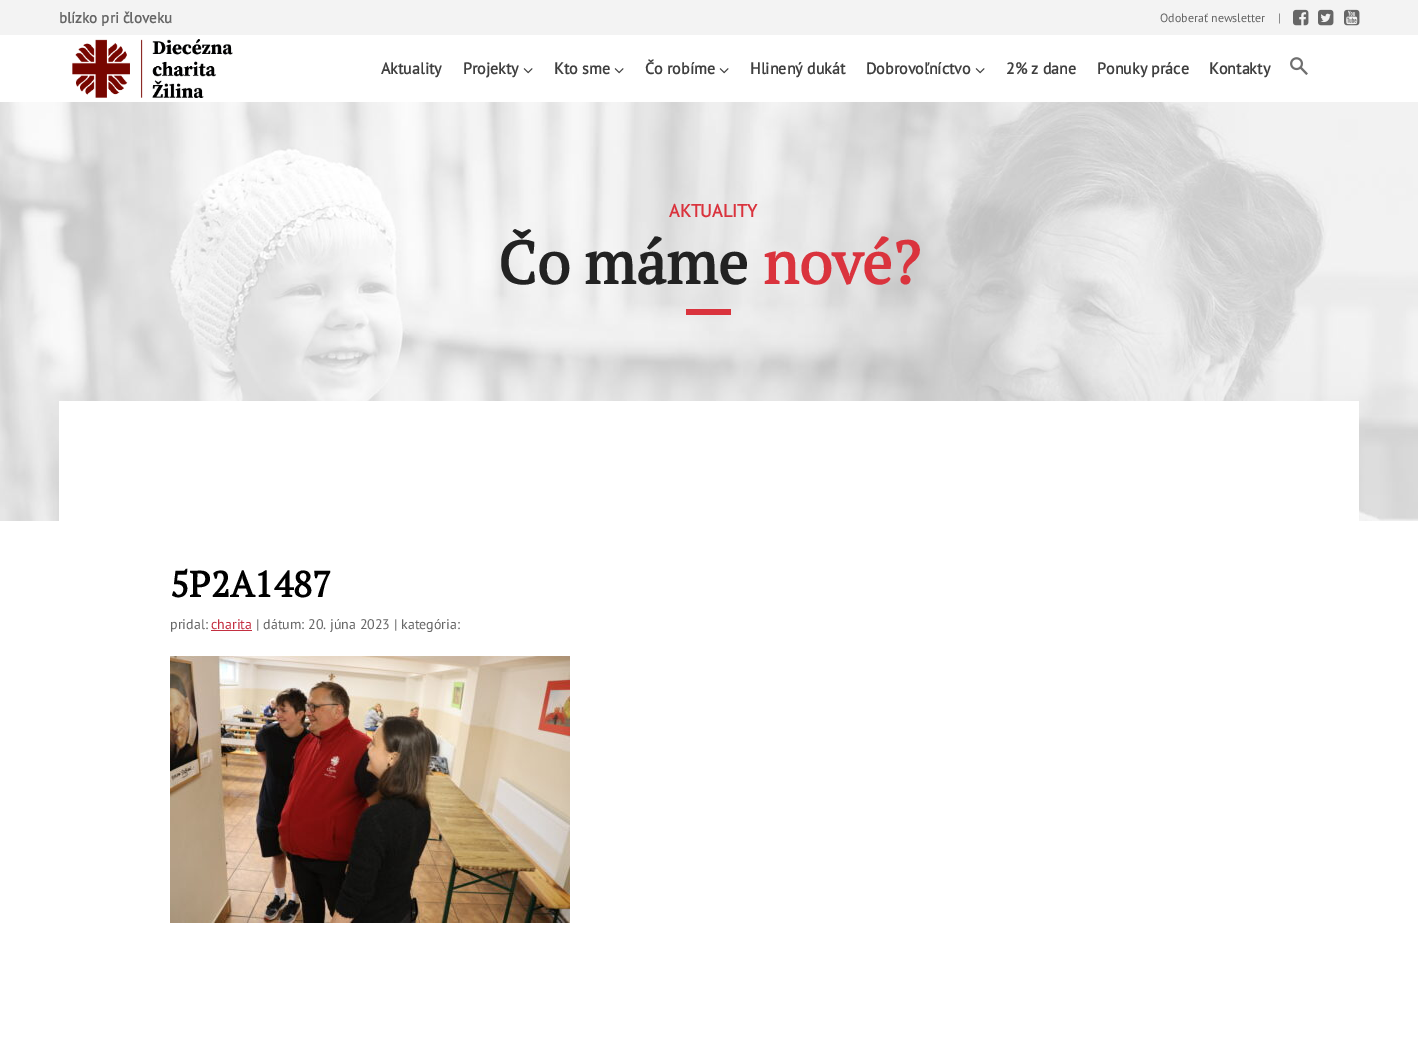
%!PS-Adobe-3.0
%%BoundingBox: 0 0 1418 1049
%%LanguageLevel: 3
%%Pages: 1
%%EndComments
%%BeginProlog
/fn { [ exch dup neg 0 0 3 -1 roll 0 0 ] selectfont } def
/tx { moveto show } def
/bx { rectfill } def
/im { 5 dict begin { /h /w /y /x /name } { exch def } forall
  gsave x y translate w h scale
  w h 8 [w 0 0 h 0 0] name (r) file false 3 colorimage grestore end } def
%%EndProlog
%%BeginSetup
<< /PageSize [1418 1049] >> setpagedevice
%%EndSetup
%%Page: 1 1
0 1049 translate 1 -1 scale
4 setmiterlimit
1 setgray
0 0 1418 1049 bx
0.953 setgray
0 0 1418 35 bx
/PTSans-Bold 15 fn
0.4 setgray
(blízko pri človeku) 59 23 tx
/PTSans-Regular 12 fn
(Odoberať newsletter) 1160 22 tx
(|) 1278 22 tx
(image0.raw) 1293 9 16 17 im
(image1.raw) 1318 9 16 17 im
(image2.raw) 1344 9 16 17 im
(image3.raw) 72 39 161 59 im
/PTSans-Bold 16 fn
0.247 setgray
(Aktuality) 381 74 tx
(Projekty) 463 74 tx
(image4.raw) 523 68 10 6 im
(Kto sme) 554 74 tx
(image4.raw) 614 68 10 6 im
(Čo robíme) 645 74 tx
(image4.raw) 719 68 10 6 im
(Hlinený dukát) 750 74 tx
(Dobrovoľníctvo) 866 74 tx
(image4.raw) 975 68 10 6 im
(2% z dane) 1006 74 tx
(Ponuky práce) 1097 74 tx
(Kontakty) 1209 74 tx
(image5.raw) 1290 57 18 18 im
(image6.raw) 0 102 1418 419 im
/PTSans-Bold 18 fn
0.855 0.2 0.239 setrgbcolor
(AKTUALITY) 669 217 tx
/PTSerif-Bold 60 fn
0.133 setgray
(Čo máme) 498 284 tx
0.855 0.2 0.239 setrgbcolor
(nové?) 763 284 tx
686 309 45 6 bx
1 setgray
59 401 1300 120 bx
/PTSerif-Bold 36 fn
0 setgray
(5P2A1487) 170 597 tx
/PTSans-Regular 14 fn
0.4 setgray
(pridal:) 170 629 tx
0.769 0.184 0.255 setrgbcolor
(charita) 211 629 tx
211 630 41 1 bx
0.4 setgray
(| dátum: 20. júna 2023 | kategória:) 256 629 tx
(image7.raw) 170 656 400 267 im
showpage
%%EOF
